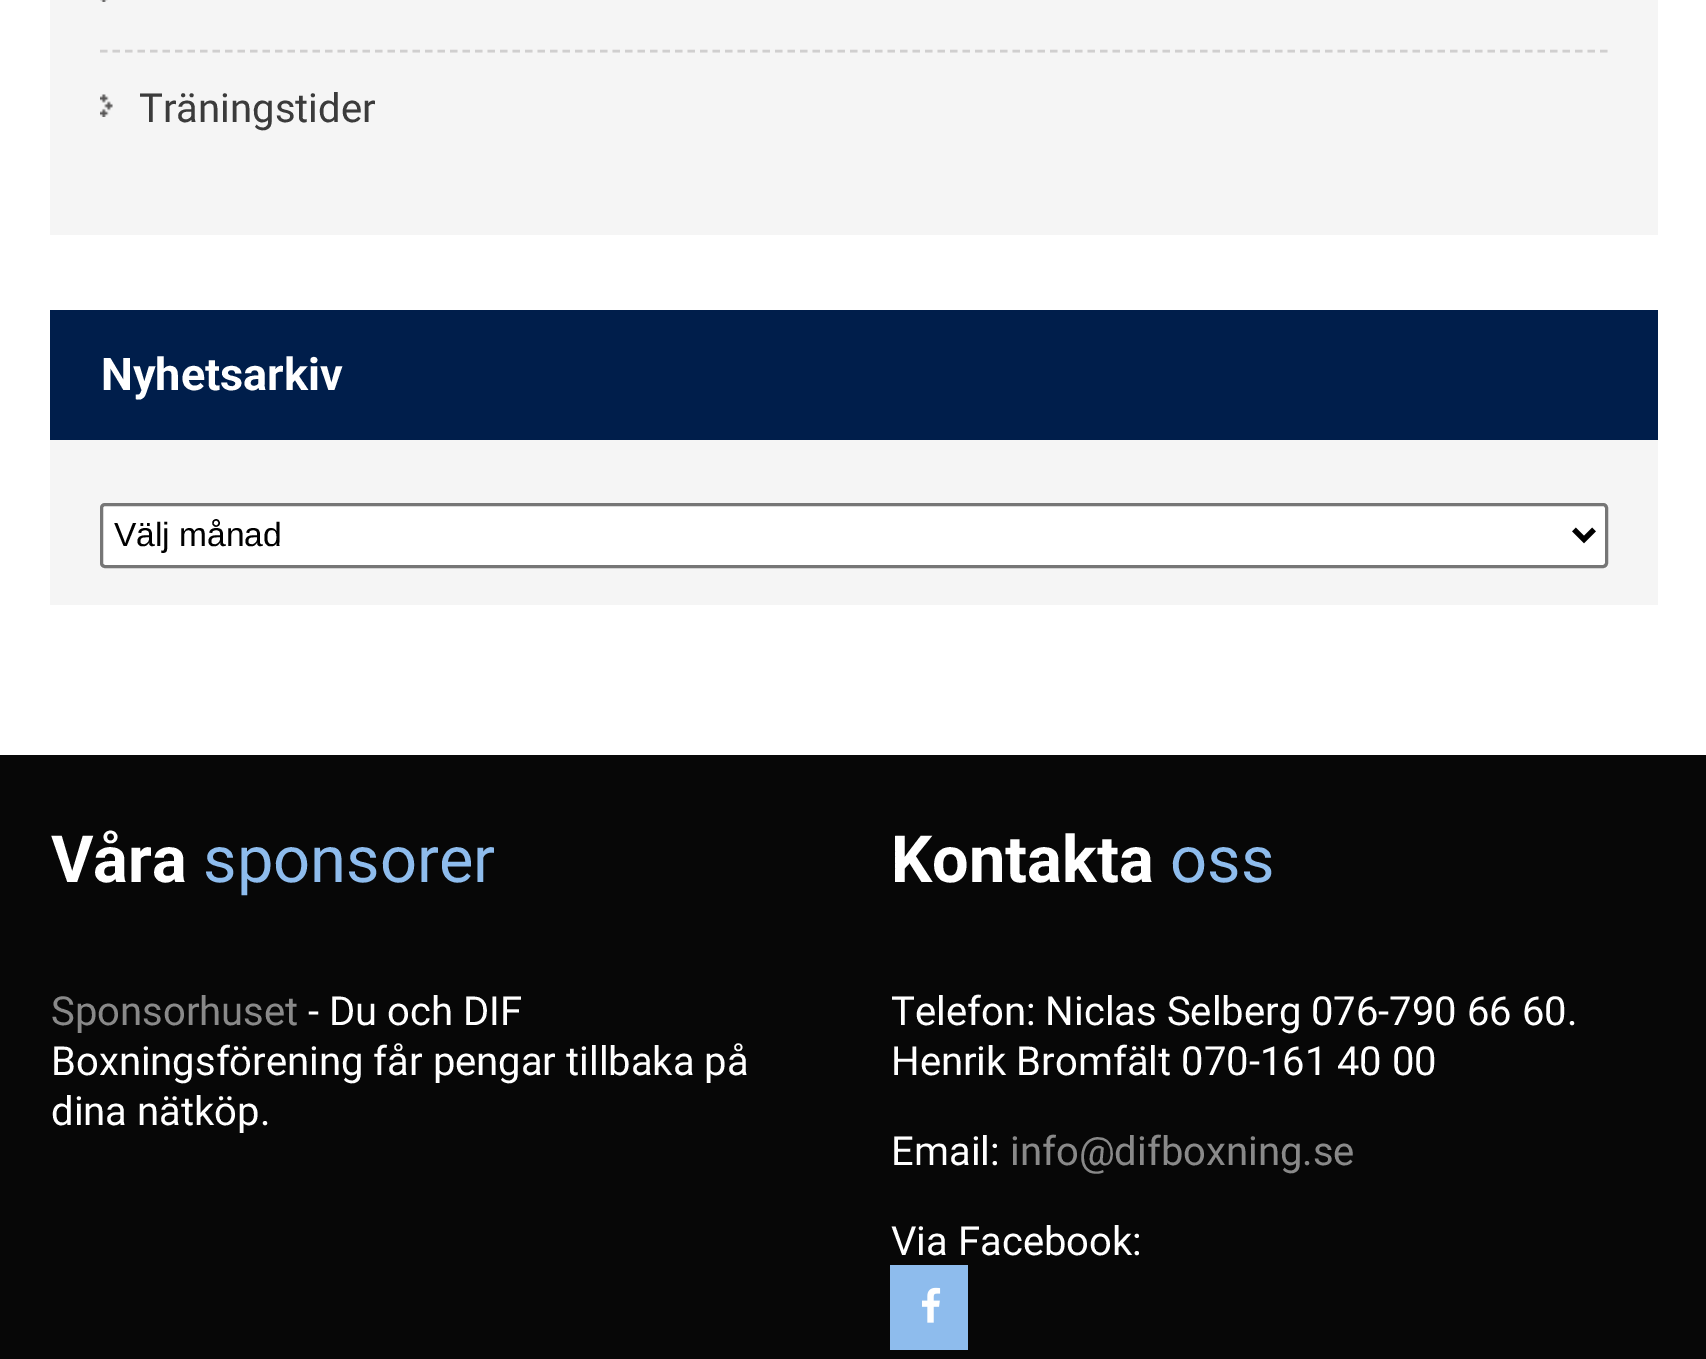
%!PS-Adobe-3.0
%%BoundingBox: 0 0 1706 1359
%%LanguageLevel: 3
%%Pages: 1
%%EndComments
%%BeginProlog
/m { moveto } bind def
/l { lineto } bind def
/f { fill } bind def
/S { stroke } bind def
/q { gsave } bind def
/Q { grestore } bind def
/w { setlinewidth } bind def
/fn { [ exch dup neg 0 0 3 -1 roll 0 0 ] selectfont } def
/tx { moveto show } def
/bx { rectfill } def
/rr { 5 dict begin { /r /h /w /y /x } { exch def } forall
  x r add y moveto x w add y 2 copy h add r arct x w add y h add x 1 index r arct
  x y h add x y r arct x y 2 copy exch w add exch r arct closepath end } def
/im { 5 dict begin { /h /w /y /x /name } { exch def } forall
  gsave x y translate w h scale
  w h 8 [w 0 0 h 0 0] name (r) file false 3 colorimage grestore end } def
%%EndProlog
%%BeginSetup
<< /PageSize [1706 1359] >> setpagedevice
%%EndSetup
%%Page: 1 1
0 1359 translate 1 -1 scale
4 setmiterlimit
1 setgray
0 0 1706 1359 bx
0.961 setgray
50 0 1608 235 bx
(image0.raw) 100 0 8 2 im
0.816 0.812 0.812 setrgbcolor
2.5 w
[7.5 5] 0 setdash
100 51 m 1607.5 51 l S
(image1.raw) 100 94 13 23 im
/Roboto-Regular 40 fn
0.231 setgray
(Träningstider) 139 122 tx
0.961 setgray
50 440 1608 165 bx
0 0.118 0.294 setrgbcolor
50 310 1608 130 bx
/Roboto-Bold 45 fn
1 setgray
(Nyhetsarkiv) 101 390 tx
101.5 504.5 1505 62 3.5 rr q f Q
0.463 setgray
3 w
[] 0 setdash
S
0 setgray
5 w
1574 529.5 m 1584 539.5 l 1594 529.5 l S
/LiberationSans-Regular 33.5 fn
(Välj månad) 114 546 tx
0.027 setgray
0 755 1706 604 bx
/Roboto-Bold 65 fn
1 setgray
(Våra) 51 882 tx
/Roboto-Regular 65 fn
0.557 0.737 0.929 setrgbcolor
(sponsorer) 203 882 tx
/Roboto-Regular 40 fn
0.537 setgray
(Sponsorhuset) 51 1025 tx
1 setgray
(- Du och DIF) 308 1025 tx
(Boxningsförening får pengar tillbaka på) 51 1075 tx
(dina nätköp.) 51 1125 tx
/Roboto-Bold 65 fn
(Kontakta) 891 882 tx
/Roboto-Regular 65 fn
0.557 0.737 0.929 setrgbcolor
(oss) 1170 882 tx
/Roboto-Regular 40 fn
1 setgray
(Telefon: Niclas Selberg 076-790 66 60.) 891 1025 tx
(Henrik Bromfält 070-161 40 00) 891 1075 tx
(Email:) 891 1165 tx
0.537 setgray
(info@difboxning.se) 1010 1165 tx
1 setgray
(Via Facebook:) 891 1255 tx
0.557 0.737 0.929 setrgbcolor
890 1265 78 85 bx
(image2.raw) 922 1287 19 36 im
showpage
%%EOF
